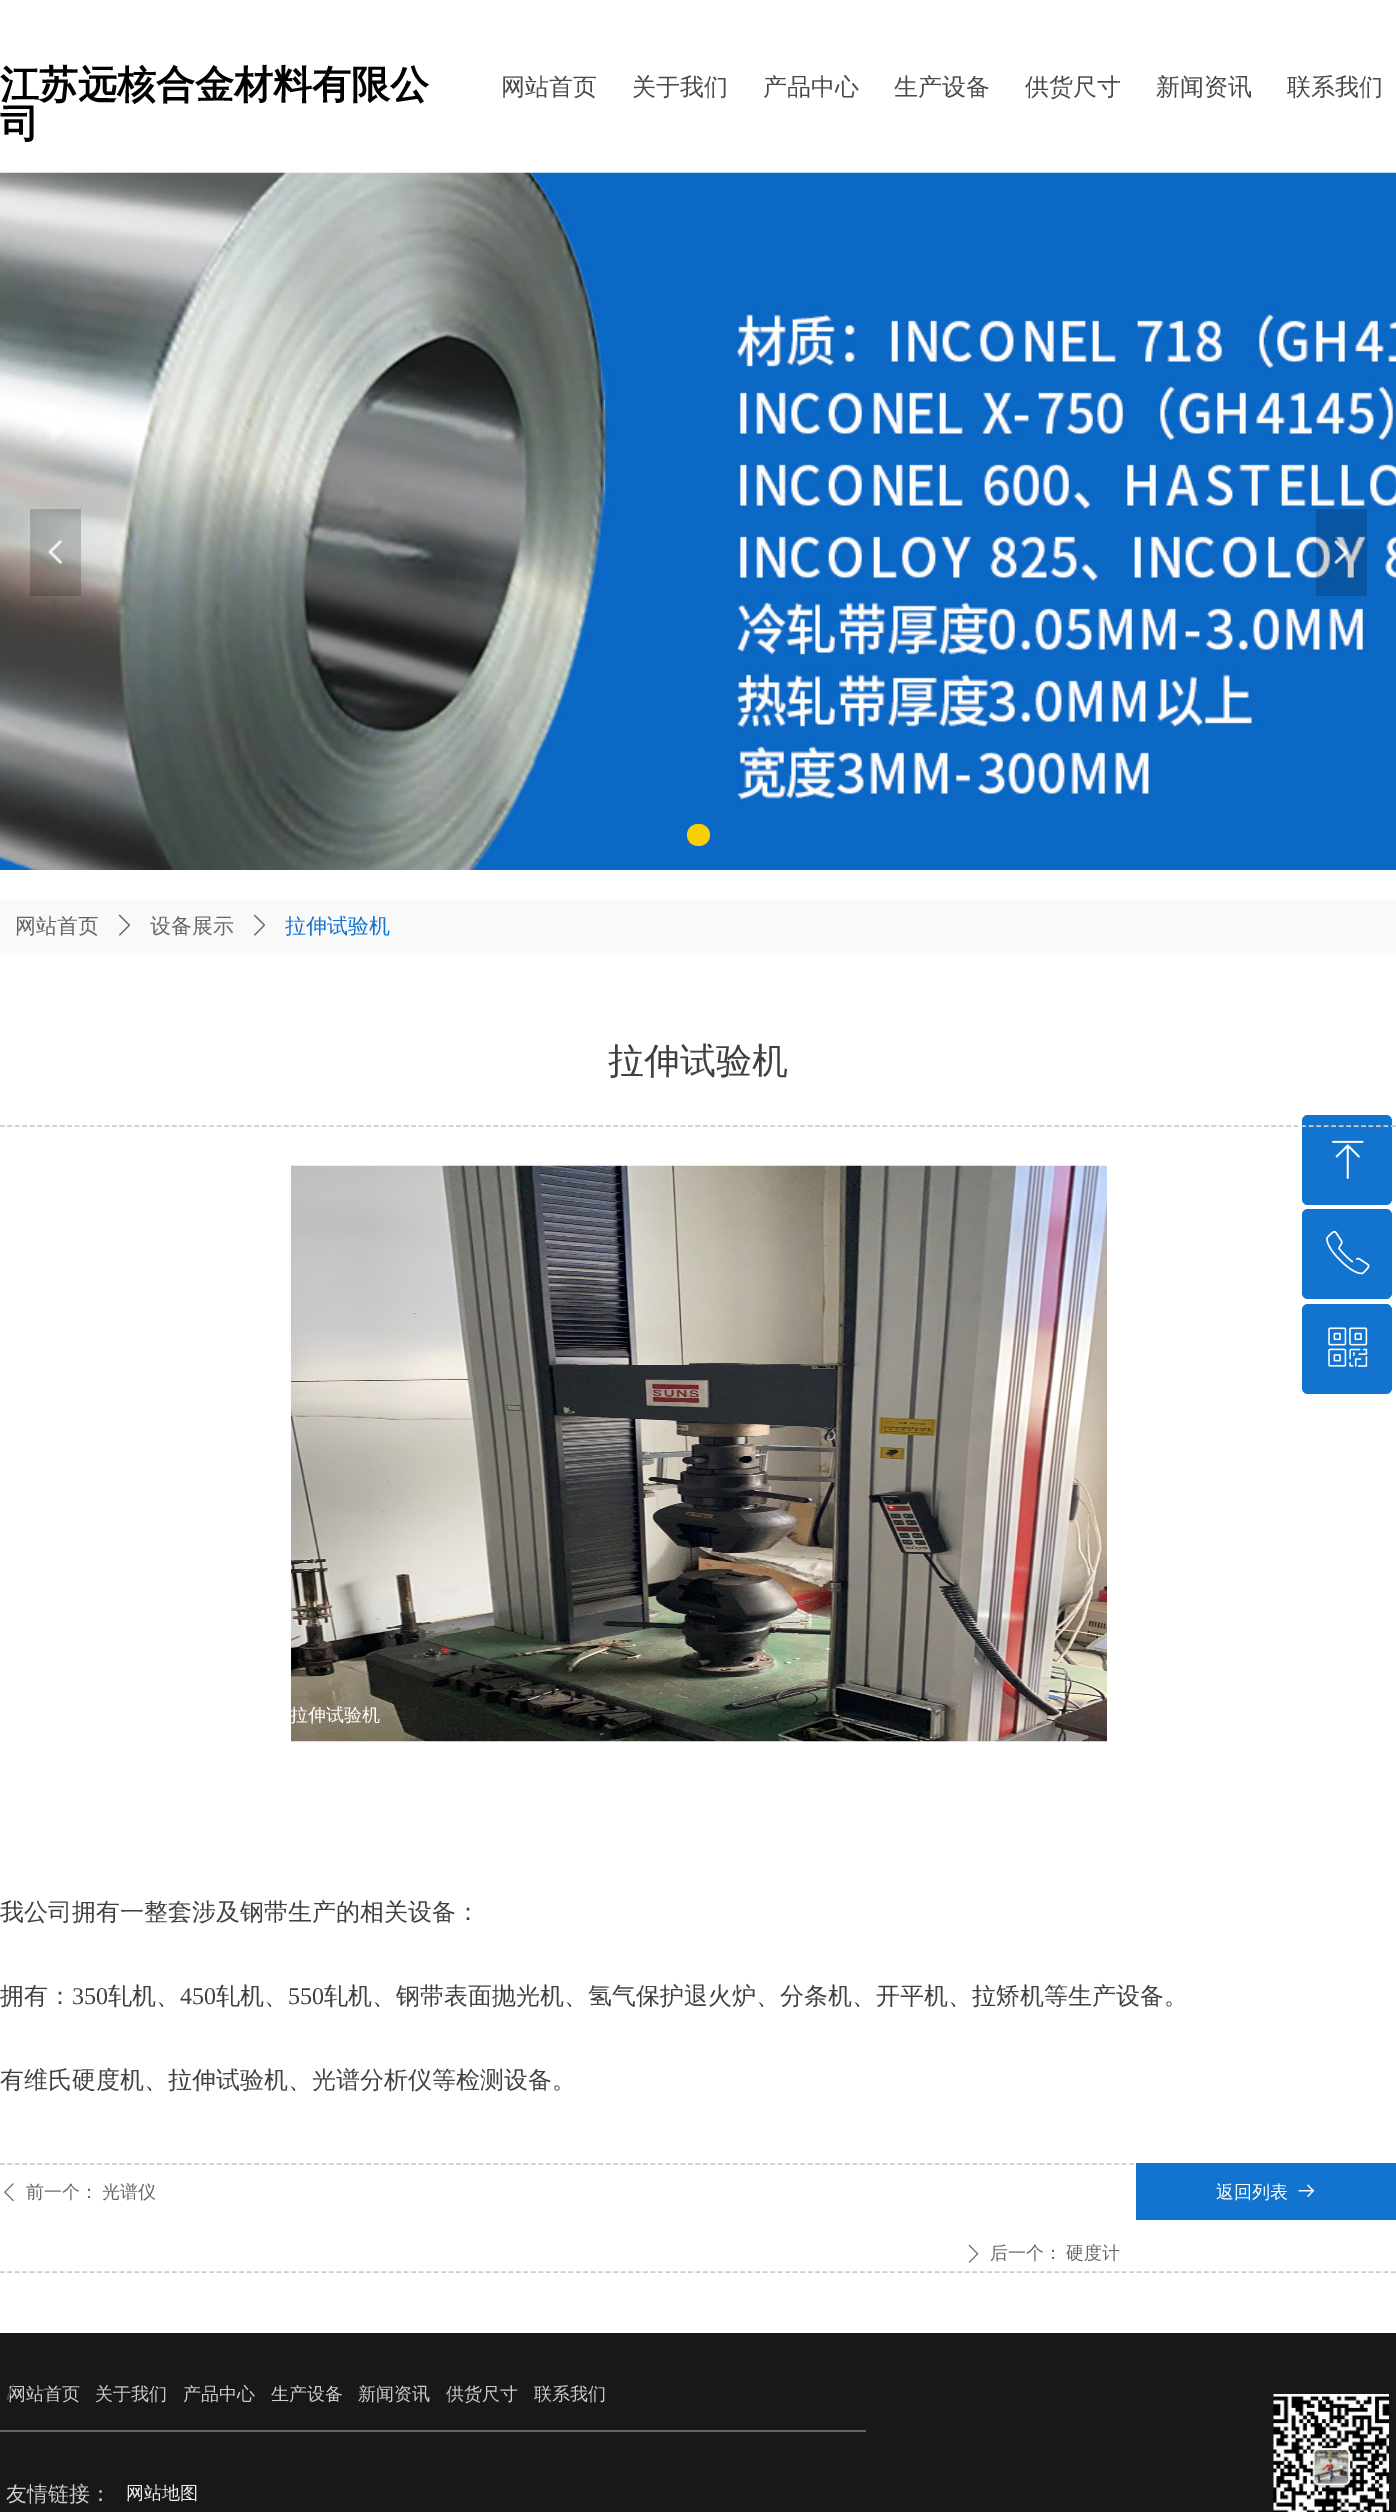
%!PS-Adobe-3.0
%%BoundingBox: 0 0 1396 2512
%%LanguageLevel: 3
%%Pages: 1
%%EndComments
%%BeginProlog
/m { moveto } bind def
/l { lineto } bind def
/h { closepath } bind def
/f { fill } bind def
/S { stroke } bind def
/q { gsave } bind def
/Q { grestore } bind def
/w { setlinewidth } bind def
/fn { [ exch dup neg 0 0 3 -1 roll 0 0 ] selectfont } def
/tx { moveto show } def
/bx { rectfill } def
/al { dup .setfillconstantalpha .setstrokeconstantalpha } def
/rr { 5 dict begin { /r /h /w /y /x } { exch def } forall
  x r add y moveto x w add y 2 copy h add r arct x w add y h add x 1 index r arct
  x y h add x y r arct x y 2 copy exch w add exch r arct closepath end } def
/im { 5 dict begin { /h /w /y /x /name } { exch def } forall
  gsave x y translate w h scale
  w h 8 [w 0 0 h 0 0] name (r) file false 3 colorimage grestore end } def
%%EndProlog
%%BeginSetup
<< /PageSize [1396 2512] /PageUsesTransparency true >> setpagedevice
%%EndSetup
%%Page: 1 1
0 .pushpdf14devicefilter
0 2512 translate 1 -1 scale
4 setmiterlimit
1 setgray
0 0 1396 2512 bx
/WenQuanYiZenHei-Bold 39 fn
0 setgray
(江苏远核合金材料有限公) 0 98 tx
(司) 0 137 tx
/WenQuanYiZenHei-Medium 24 fn
0.29 setgray
(网站首页) 501 95 tx
(关于我们) 632 95 tx
(产品中心) 763 95 tx
(生产设备) 894 95 tx
(供货尺寸) 1025 95 tx
(新闻资讯) 1156 95 tx
(联系我们) 1287 95 tx
(image0.raw) 0 172 1396 698 im
0.18 al
0 setgray
30 509 51 87 bx
1 al
(image1.raw) 48 540 14 24 im
0.18 al
1316 509 51 87 bx
1 al
(image2.raw) 1334 540 14 24 im
0.973 0.816 0 setrgbcolor
687 824 23 22 11 rr f
0.976 setgray
0 900 1396 53 bx
/WenQuanYiZenHei-Medium 21 fn
0.4 setgray
(网站首页) 15 933 tx
(image3.raw) 118 914 12 22 im
(设备展示) 150 933 tx
(image3.raw) 253 914 12 22 im
0.071 0.455 0.808 setrgbcolor
(拉伸试验机) 285 933 tx
/WenQuanYiZenHei-Medium 36 fn
0.251 setgray
(拉伸试验机) 608 1073 tx
0.071 0.455 0.808 setrgbcolor
1302 1115 90 90 6 rr f
0.8 setgray
1.5 w
[4.5 2.98] 0 setdash
0 1126 m 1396.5 1126 l S
(image4.raw) 291 1165 816 577 im
q
291 1688 816 54 rectclip
/WenQuanYiZenHei-Medium 18 fn
1 setgray
(拉伸试验机) 290 1721 tx
Q
/WenQuanYiZenHei-Medium 24 fn
0.251 setgray
(我公司拥有一整套涉及钢带生产的相关设备：) 0 1920 tx
(拥有：) 0 2004 tx
/LiberationSerif-Regular 24 fn
(350) 72 2004 tx
/WenQuanYiZenHei-Medium 24 fn
(轧机、) 108 2004 tx
/LiberationSerif-Regular 24 fn
(450) 180 2004 tx
/WenQuanYiZenHei-Medium 24 fn
(轧机、) 216 2004 tx
/LiberationSerif-Regular 24 fn
(550) 288 2004 tx
/WenQuanYiZenHei-Medium 24 fn
(轧机、钢带表面抛光机、氢气保护退火炉、分条机、开平机、拉矫机等生产设备。) 324 2004 tx
(有维氏硬度机、拉伸试验机、光谱分析仪等检测设备。) 0 2088 tx
0.8 setgray
0 2164 m 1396.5 2164 l S
(image5.raw) 4 2183 10 19 im
/WenQuanYiZenHei-Medium 18 fn
0.4 setgray
(前一个：) 26 2198 tx
(光谱仪) 102 2198 tx
0.071 0.455 0.808 setrgbcolor
1136 2163 260 57 bx
1 setgray
(返回列表) 1216 2198 tx
(image6.raw) 1298 2184 17 13 im
(image7.raw) 968 2244 11 19 im
0.4 setgray
(后一个：) 990 2259 tx
(硬度计) 1066 2259 tx
0.8 setgray
0 2272 m 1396.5 2272 l S
0.094 setgray
0 2333 1396 179 bx
0.8 setgray
(网站首页) 8 2400 tx
0.267 setgray
6.5 2399 m 12.5 2384 l 14 2384.5 l 8 2400 l h f
0.8 setgray
(关于我们) 95 2400 tx
(产品中心) 183 2400 tx
(生产设备) 271 2400 tx
(新闻资讯) 358 2400 tx
(供货尺寸) 446 2400 tx
(联系我们) 534 2400 tx
0.4 setgray
0 2430 866 2 bx
(image8.raw) 1273 2394 116 118 im
/WenQuanYiZenHei-Medium 21 fn
0.8 setgray
(友情链接：) 6 2501 tx
/WenQuanYiZenHei-Medium 18 fn
0.933 setgray
(网站地图) 126 2499 tx
(image9.raw) 1332 1140 32 39 im
0.071 0.455 0.808 setrgbcolor
1302 1209 90 90 6 rr f
(image10.raw) 1326 1230 44 45 im
1302 1304 90 90 6 rr f
(image11.raw) 1328 1327 40 40 im
.poppdf14devicefilter showpage
%%EOF
